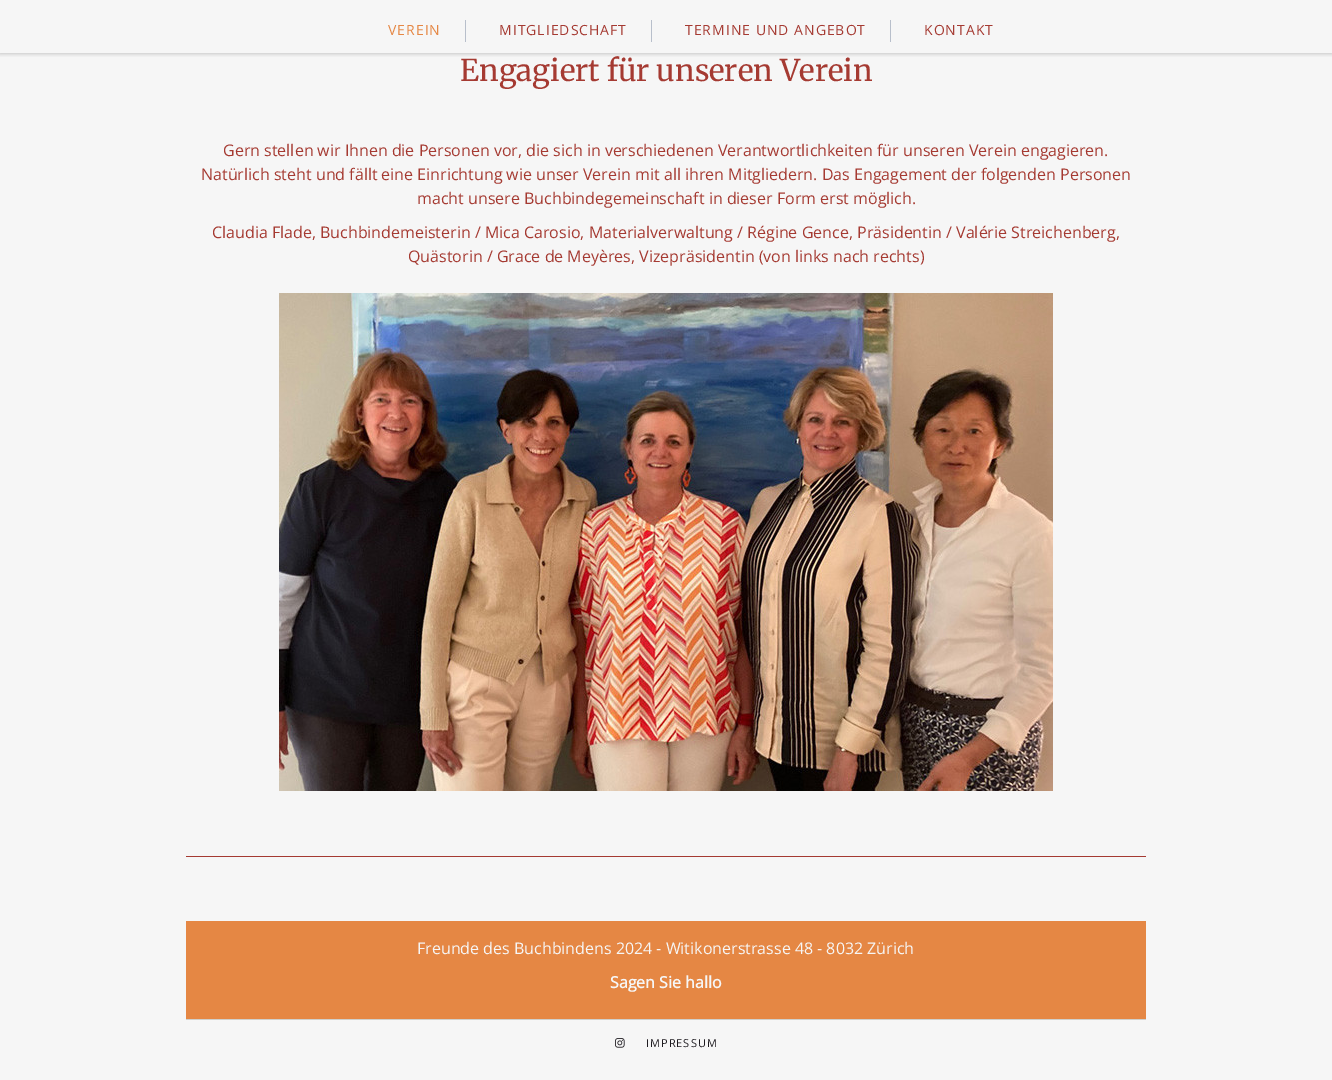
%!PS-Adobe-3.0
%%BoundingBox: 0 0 1332 1080
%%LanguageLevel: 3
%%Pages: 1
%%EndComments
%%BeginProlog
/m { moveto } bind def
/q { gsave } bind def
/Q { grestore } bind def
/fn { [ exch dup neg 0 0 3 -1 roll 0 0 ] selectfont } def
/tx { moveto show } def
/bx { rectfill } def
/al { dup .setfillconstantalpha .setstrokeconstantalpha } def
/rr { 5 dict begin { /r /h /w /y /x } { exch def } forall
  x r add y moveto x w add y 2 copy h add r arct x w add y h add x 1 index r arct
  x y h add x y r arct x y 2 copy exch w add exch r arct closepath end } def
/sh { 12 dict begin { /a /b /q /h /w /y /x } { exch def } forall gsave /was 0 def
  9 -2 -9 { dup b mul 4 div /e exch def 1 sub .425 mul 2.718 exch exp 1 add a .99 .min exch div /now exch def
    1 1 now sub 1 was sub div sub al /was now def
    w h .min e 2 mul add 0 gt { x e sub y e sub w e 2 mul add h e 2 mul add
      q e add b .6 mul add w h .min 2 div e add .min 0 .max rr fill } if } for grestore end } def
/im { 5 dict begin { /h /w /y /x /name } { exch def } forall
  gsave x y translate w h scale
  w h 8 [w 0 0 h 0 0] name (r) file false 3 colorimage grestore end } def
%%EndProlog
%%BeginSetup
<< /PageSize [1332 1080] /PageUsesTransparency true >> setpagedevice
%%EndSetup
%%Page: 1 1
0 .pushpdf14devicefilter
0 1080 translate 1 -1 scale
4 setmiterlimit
0.965 setgray
0 0 1332 1080 bx
q
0 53 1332 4 rectclip
0 setgray
0 1 1332 53 0 2 0.2 sh
Q
/OpenSans-Regular 14 fn
0.898 0.529 0.267 setrgbcolor
388 35 m 1 0 (VEREIN) ashow
0.722 0.749 0.796 setrgbcolor
465 20 1 22 bx
0.647 0.227 0.196 setrgbcolor
499 35 m 1 0 (MITGLIEDSCHAFT) ashow
0.722 0.749 0.796 setrgbcolor
651 20 1 22 bx
0.647 0.227 0.196 setrgbcolor
685 35 m 1 0 (TERMINE UND ANGEBOT) ashow
0.722 0.749 0.796 setrgbcolor
890 20 1 22 bx
0.647 0.227 0.196 setrgbcolor
924 35 m 1 0 (KONTAKT) ashow
/Merriweather-Regular 30 fn
(Engagiert für unseren Verein) 460 81 tx
/OpenSans-Regular 16 fn
(Gern stellen wir Ihnen die Personen vor, die sich in verschiedenen Verantwortlichkeiten für unseren Verein engagieren.) 223 156 tx
(Natürlich steht und fällt eine Einrichtung wie unser Verein mit all ihren Mitgliedern. Das Engagement der folgenden Personen) 201 180 tx
(macht unsere Buchbindegemeinschaft in dieser Form erst möglich.) 417 204 tx
(Claudia Flade, Buchbindemeisterin / Mica Carosio, Materialverwaltung / Régine Gence, Präsidentin / Valérie Streichenberg,) 212 238 tx
(Quästorin / Grace de Meyères, Vizepräsidentin \(von links nach rechts\)) 408 262 tx
(image0.raw) 279 293 774 498 im
186 856 960 1 bx
0.898 0.529 0.267 setrgbcolor
186 921 960 98 bx
0.965 setgray
(Freunde des Buchbindens 2024 - Witikonerstrasse 48 - 8032 Zürich) 417 954 tx
/OpenSans-Bold 16 fn
(Sagen Sie hallo) 610 988 tx
0.816 0.816 0.8 setrgbcolor
186 1019 960 1 bx
(image1.raw) 615 1038 10 10 im
/OpenSans-Regular 11 fn
0.118 0.106 0.125 setrgbcolor
646 1047 m 1 0 (IMPRESSUM) ashow
.poppdf14devicefilter showpage
%%EOF
